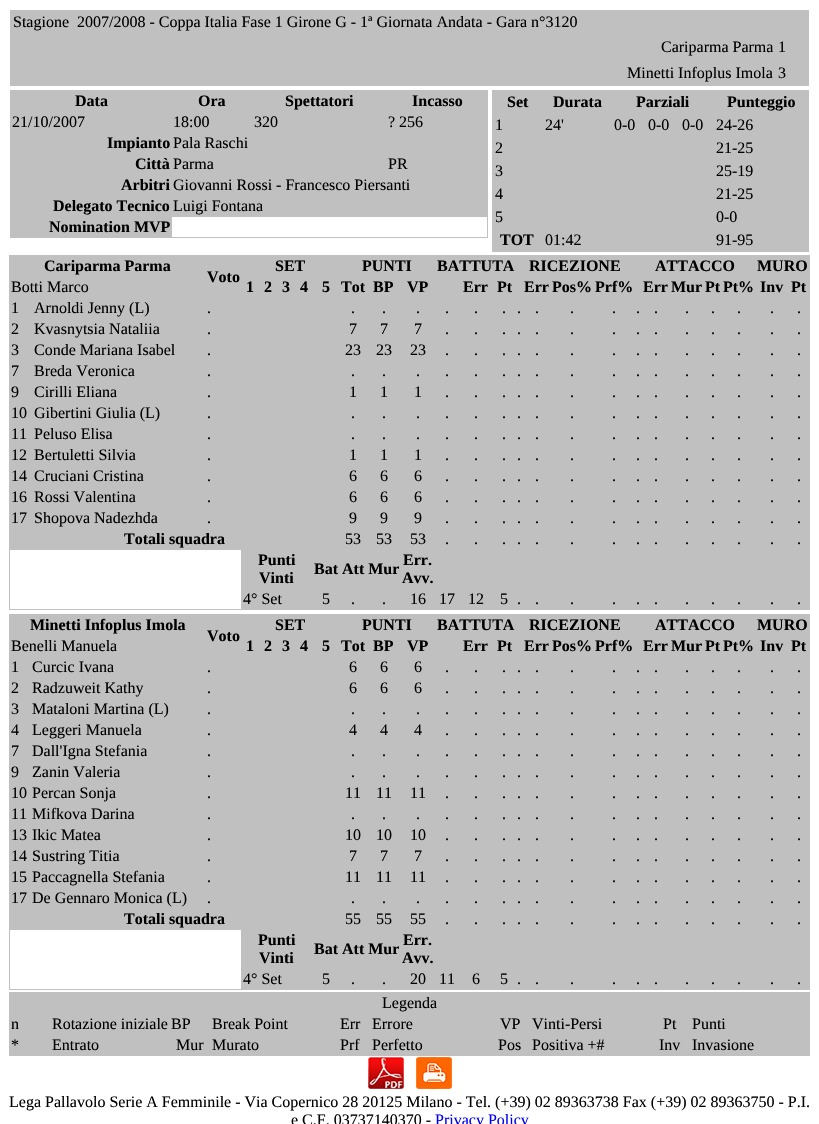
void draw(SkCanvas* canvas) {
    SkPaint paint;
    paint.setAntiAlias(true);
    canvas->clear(0xFFFFFFFF);
    paint.setColor(0xFFC0C0C0);
    canvas->drawRect(SkRect::MakeXYWH(10, 10, 799, 76), paint);
    SkFont font1(fontMgr->matchFamilyStyle("Liberation Serif", SkFontStyle::Normal()), 16);
    font1.setSubpixel(true);
    paint.setColor(0xFF000000);
    canvas->drawString("Stagione  2007/2008 - Coppa Italia Fase 1 Girone G - 1ª Giornata Andata - Gara n°3120", 13, 27, font1, paint);
    canvas->drawString("Cariparma Parma", 661, 52, font1, paint);
    canvas->drawString("1", 778, 52, font1, paint);
    canvas->drawString("Minetti Infoplus Imola", 627, 78, font1, paint);
    canvas->drawString("3", 778, 78, font1, paint);
    paint.setColor(0xFFC0C0C0);
    canvas->drawRect(SkRect::MakeXYWH(10, 90, 478, 148), paint);
    SkFont font2(fontMgr->matchFamilyStyle("Liberation Serif", SkFontStyle::Bold()), 16);
    font2.setSubpixel(true);
    paint.setColor(0xFF000000);
    canvas->drawString("Data", 75, 106, font2, paint);
    canvas->drawString("Ora", 198, 106, font2, paint);
    canvas->drawString("Spettatori", 285, 106, font2, paint);
    canvas->drawString("Incasso", 412, 106, font2, paint);
    canvas->drawString("21/10/2007", 12, 127, font1, paint);
    canvas->drawString("18:00", 173, 127, font1, paint);
    canvas->drawString("320", 254, 127, font1, paint);
    canvas->drawString("? 256", 388, 127, font1, paint);
    canvas->drawString("Impianto", 107, 148, font2, paint);
    canvas->drawString("Pala Raschi", 173, 148, font1, paint);
    canvas->drawString("Città", 135, 169, font2, paint);
    canvas->drawString("Parma", 173, 169, font1, paint);
    canvas->drawString("PR", 388, 169, font1, paint);
    canvas->drawString("Arbitri", 121, 190, font2, paint);
    canvas->drawString("Giovanni Rossi - Francesco Piersanti", 173, 190, font1, paint);
    canvas->drawString("Delegato Tecnico", 53, 211, font2, paint);
    canvas->drawString("Luigi Fontana", 173, 211, font1, paint);
    canvas->drawString("Nomination MVP", 49, 232, font2, paint);
    paint.setColor(0xFFFFFFFF);
    canvas->drawRect(SkRect::MakeXYWH(172, 217, 315, 20), paint);
    paint.setColor(0xFFC0C0C0);
    canvas->drawRect(SkRect::MakeXYWH(492, 90, 317, 162), paint);
    paint.setColor(0xFF000000);
    canvas->drawString("Set", 507, 107, font2, paint);
    canvas->drawString("Durata", 553, 107, font2, paint);
    canvas->drawString("Parziali", 636, 107, font2, paint);
    canvas->drawString("Punteggio", 727, 107, font2, paint);
    canvas->drawString("1", 495, 130, font1, paint);
    canvas->drawString("24'", 545, 130, font1, paint);
    canvas->drawString("0-0", 614, 130, font1, paint);
    canvas->drawString("0-0", 648, 130, font1, paint);
    canvas->drawString("0-0", 682, 130, font1, paint);
    canvas->drawString("24-26", 716, 130, font1, paint);
    canvas->drawString("2", 495, 153, font1, paint);
    canvas->drawString("21-25", 716, 153, font1, paint);
    canvas->drawString("3", 495, 176, font1, paint);
    canvas->drawString("25-19", 716, 176, font1, paint);
    canvas->drawString("4", 495, 199, font1, paint);
    canvas->drawString("21-25", 716, 199, font1, paint);
    canvas->drawString("5", 495, 222, font1, paint);
    canvas->drawString("0-0", 716, 222, font1, paint);
    canvas->drawString("TOT", 500, 245, font2, paint);
    canvas->drawString("01:42", 545, 245, font1, paint);
    canvas->drawString("91-95", 716, 245, font1, paint);
    paint.setColor(0xFFC0C0C0);
    canvas->drawRect(SkRect::MakeXYWH(9, 255, 801, 355), paint);
    paint.setColor(0xFF000000);
    canvas->drawString("Cariparma Parma", 44, 271, font2, paint);
    canvas->drawString("SET", 275, 271, font2, paint);
    canvas->drawString("PUNTI", 362, 271, font2, paint);
    canvas->drawString("BATTUTA", 437, 271, font2, paint);
    canvas->drawString("RICEZIONE", 529, 271, font2, paint);
    canvas->drawString("ATTACCO", 655, 271, font2, paint);
    canvas->drawString("MURO", 757, 271, font2, paint);
    canvas->drawString("Voto", 207, 282, font2, paint);
    canvas->drawString("Botti Marco", 11, 292, font1, paint);
    canvas->drawString("1", 246, 292, font2, paint);
    canvas->drawString("2", 264, 292, font2, paint);
    canvas->drawString("3", 282, 292, font2, paint);
    canvas->drawString("4", 300, 292, font2, paint);
    canvas->drawString("5", 322, 292, font2, paint);
    canvas->drawString("Tot", 341, 292, font2, paint);
    canvas->drawString("BP", 373, 292, font2, paint);
    canvas->drawString("VP", 407, 292, font2, paint);
    canvas->drawString("Err", 463, 292, font2, paint);
    canvas->drawString("Pt", 497, 292, font2, paint);
    canvas->drawString("Err", 524, 292, font2, paint);
    canvas->drawString("Pos%", 552, 292, font2, paint);
    canvas->drawString("Prf%", 595, 292, font2, paint);
    canvas->drawString("Err", 643, 292, font2, paint);
    canvas->drawString("Mur", 671, 292, font2, paint);
    canvas->drawString("Pt", 705, 292, font2, paint);
    canvas->drawString("Pt%", 723, 292, font2, paint);
    canvas->drawString("Inv", 760, 292, font2, paint);
    canvas->drawString("Pt", 791, 292, font2, paint);
    canvas->drawString("1", 11, 313, font1, paint);
    canvas->drawString("Arnoldi Jenny (L)", 34, 313, font1, paint);
    canvas->drawString(".", 207, 313, font1, paint);
    canvas->drawString(".", 351, 313, font1, paint);
    canvas->drawString(".", 382, 313, font1, paint);
    canvas->drawString(".", 416, 313, font1, paint);
    canvas->drawString(".", 445, 313, font1, paint);
    canvas->drawString(".", 474, 313, font1, paint);
    canvas->drawString(".", 502, 313, font1, paint);
    canvas->drawString(".", 517, 313, font1, paint);
    canvas->drawString(".", 535, 313, font1, paint);
    canvas->drawString(".", 570, 313, font1, paint);
    canvas->drawString(".", 612, 313, font1, paint);
    canvas->drawString(".", 636, 313, font1, paint);
    canvas->drawString(".", 654, 313, font1, paint);
    canvas->drawString(".", 685, 313, font1, paint);
    canvas->drawString(".", 711, 313, font1, paint);
    canvas->drawString(".", 737, 313, font1, paint);
    canvas->drawString(".", 770, 313, font1, paint);
    canvas->drawString(".", 797, 313, font1, paint);
    canvas->drawString("2", 11, 334, font1, paint);
    canvas->drawString("Kvasnytsia Nataliia", 34, 334, font1, paint);
    canvas->drawString(".", 207, 334, font1, paint);
    canvas->drawString("7", 349, 334, font1, paint);
    canvas->drawString("7", 380, 334, font1, paint);
    canvas->drawString("7", 414, 334, font1, paint);
    canvas->drawString(".", 445, 334, font1, paint);
    canvas->drawString(".", 474, 334, font1, paint);
    canvas->drawString(".", 502, 334, font1, paint);
    canvas->drawString(".", 517, 334, font1, paint);
    canvas->drawString(".", 535, 334, font1, paint);
    canvas->drawString(".", 570, 334, font1, paint);
    canvas->drawString(".", 612, 334, font1, paint);
    canvas->drawString(".", 636, 334, font1, paint);
    canvas->drawString(".", 654, 334, font1, paint);
    canvas->drawString(".", 685, 334, font1, paint);
    canvas->drawString(".", 711, 334, font1, paint);
    canvas->drawString(".", 737, 334, font1, paint);
    canvas->drawString(".", 770, 334, font1, paint);
    canvas->drawString(".", 797, 334, font1, paint);
    canvas->drawString("3", 11, 355, font1, paint);
    canvas->drawString("Conde Mariana Isabel", 34, 355, font1, paint);
    canvas->drawString(".", 207, 355, font1, paint);
    canvas->drawString("23", 345, 355, font1, paint);
    canvas->drawString("23", 376, 355, font1, paint);
    canvas->drawString("23", 410, 355, font1, paint);
    canvas->drawString(".", 445, 355, font1, paint);
    canvas->drawString(".", 474, 355, font1, paint);
    canvas->drawString(".", 502, 355, font1, paint);
    canvas->drawString(".", 517, 355, font1, paint);
    canvas->drawString(".", 535, 355, font1, paint);
    canvas->drawString(".", 570, 355, font1, paint);
    canvas->drawString(".", 612, 355, font1, paint);
    canvas->drawString(".", 636, 355, font1, paint);
    canvas->drawString(".", 654, 355, font1, paint);
    canvas->drawString(".", 685, 355, font1, paint);
    canvas->drawString(".", 711, 355, font1, paint);
    canvas->drawString(".", 737, 355, font1, paint);
    canvas->drawString(".", 770, 355, font1, paint);
    canvas->drawString(".", 797, 355, font1, paint);
    canvas->drawString("7", 11, 376, font1, paint);
    canvas->drawString("Breda Veronica", 34, 376, font1, paint);
    canvas->drawString(".", 207, 376, font1, paint);
    canvas->drawString(".", 351, 376, font1, paint);
    canvas->drawString(".", 382, 376, font1, paint);
    canvas->drawString(".", 416, 376, font1, paint);
    canvas->drawString(".", 445, 376, font1, paint);
    canvas->drawString(".", 474, 376, font1, paint);
    canvas->drawString(".", 502, 376, font1, paint);
    canvas->drawString(".", 517, 376, font1, paint);
    canvas->drawString(".", 535, 376, font1, paint);
    canvas->drawString(".", 570, 376, font1, paint);
    canvas->drawString(".", 612, 376, font1, paint);
    canvas->drawString(".", 636, 376, font1, paint);
    canvas->drawString(".", 654, 376, font1, paint);
    canvas->drawString(".", 685, 376, font1, paint);
    canvas->drawString(".", 711, 376, font1, paint);
    canvas->drawString(".", 737, 376, font1, paint);
    canvas->drawString(".", 770, 376, font1, paint);
    canvas->drawString(".", 797, 376, font1, paint);
    canvas->drawString("9", 11, 397, font1, paint);
    canvas->drawString("Cirilli Eliana", 34, 397, font1, paint);
    canvas->drawString(".", 207, 397, font1, paint);
    canvas->drawString("1", 349, 397, font1, paint);
    canvas->drawString("1", 380, 397, font1, paint);
    canvas->drawString("1", 414, 397, font1, paint);
    canvas->drawString(".", 445, 397, font1, paint);
    canvas->drawString(".", 474, 397, font1, paint);
    canvas->drawString(".", 502, 397, font1, paint);
    canvas->drawString(".", 517, 397, font1, paint);
    canvas->drawString(".", 535, 397, font1, paint);
    canvas->drawString(".", 570, 397, font1, paint);
    canvas->drawString(".", 612, 397, font1, paint);
    canvas->drawString(".", 636, 397, font1, paint);
    canvas->drawString(".", 654, 397, font1, paint);
    canvas->drawString(".", 685, 397, font1, paint);
    canvas->drawString(".", 711, 397, font1, paint);
    canvas->drawString(".", 737, 397, font1, paint);
    canvas->drawString(".", 770, 397, font1, paint);
    canvas->drawString(".", 797, 397, font1, paint);
    canvas->drawString("10", 11, 418, font1, paint);
    canvas->drawString("Gibertini Giulia (L)", 34, 418, font1, paint);
    canvas->drawString(".", 207, 418, font1, paint);
    canvas->drawString(".", 351, 418, font1, paint);
    canvas->drawString(".", 382, 418, font1, paint);
    canvas->drawString(".", 416, 418, font1, paint);
    canvas->drawString(".", 445, 418, font1, paint);
    canvas->drawString(".", 474, 418, font1, paint);
    canvas->drawString(".", 502, 418, font1, paint);
    canvas->drawString(".", 517, 418, font1, paint);
    canvas->drawString(".", 535, 418, font1, paint);
    canvas->drawString(".", 570, 418, font1, paint);
    canvas->drawString(".", 612, 418, font1, paint);
    canvas->drawString(".", 636, 418, font1, paint);
    canvas->drawString(".", 654, 418, font1, paint);
    canvas->drawString(".", 685, 418, font1, paint);
    canvas->drawString(".", 711, 418, font1, paint);
    canvas->drawString(".", 737, 418, font1, paint);
    canvas->drawString(".", 770, 418, font1, paint);
    canvas->drawString(".", 797, 418, font1, paint);
    canvas->drawString("11", 11, 439, font1, paint);
    canvas->drawString("Peluso Elisa", 34, 439, font1, paint);
    canvas->drawString(".", 207, 439, font1, paint);
    canvas->drawString(".", 351, 439, font1, paint);
    canvas->drawString(".", 382, 439, font1, paint);
    canvas->drawString(".", 416, 439, font1, paint);
    canvas->drawString(".", 445, 439, font1, paint);
    canvas->drawString(".", 474, 439, font1, paint);
    canvas->drawString(".", 502, 439, font1, paint);
    canvas->drawString(".", 517, 439, font1, paint);
    canvas->drawString(".", 535, 439, font1, paint);
    canvas->drawString(".", 570, 439, font1, paint);
    canvas->drawString(".", 612, 439, font1, paint);
    canvas->drawString(".", 636, 439, font1, paint);
    canvas->drawString(".", 654, 439, font1, paint);
    canvas->drawString(".", 685, 439, font1, paint);
    canvas->drawString(".", 711, 439, font1, paint);
    canvas->drawString(".", 737, 439, font1, paint);
    canvas->drawString(".", 770, 439, font1, paint);
    canvas->drawString(".", 797, 439, font1, paint);
    canvas->drawString("12", 11, 460, font1, paint);
    canvas->drawString("Bertuletti Silvia", 34, 460, font1, paint);
    canvas->drawString(".", 207, 460, font1, paint);
    canvas->drawString("1", 349, 460, font1, paint);
    canvas->drawString("1", 380, 460, font1, paint);
    canvas->drawString("1", 414, 460, font1, paint);
    canvas->drawString(".", 445, 460, font1, paint);
    canvas->drawString(".", 474, 460, font1, paint);
    canvas->drawString(".", 502, 460, font1, paint);
    canvas->drawString(".", 517, 460, font1, paint);
    canvas->drawString(".", 535, 460, font1, paint);
    canvas->drawString(".", 570, 460, font1, paint);
    canvas->drawString(".", 612, 460, font1, paint);
    canvas->drawString(".", 636, 460, font1, paint);
    canvas->drawString(".", 654, 460, font1, paint);
    canvas->drawString(".", 685, 460, font1, paint);
    canvas->drawString(".", 711, 460, font1, paint);
    canvas->drawString(".", 737, 460, font1, paint);
    canvas->drawString(".", 770, 460, font1, paint);
    canvas->drawString(".", 797, 460, font1, paint);
    canvas->drawString("14", 11, 481, font1, paint);
    canvas->drawString("Cruciani Cristina", 34, 481, font1, paint);
    canvas->drawString(".", 207, 481, font1, paint);
    canvas->drawString("6", 349, 481, font1, paint);
    canvas->drawString("6", 380, 481, font1, paint);
    canvas->drawString("6", 414, 481, font1, paint);
    canvas->drawString(".", 445, 481, font1, paint);
    canvas->drawString(".", 474, 481, font1, paint);
    canvas->drawString(".", 502, 481, font1, paint);
    canvas->drawString(".", 517, 481, font1, paint);
    canvas->drawString(".", 535, 481, font1, paint);
    canvas->drawString(".", 570, 481, font1, paint);
    canvas->drawString(".", 612, 481, font1, paint);
    canvas->drawString(".", 636, 481, font1, paint);
    canvas->drawString(".", 654, 481, font1, paint);
    canvas->drawString(".", 685, 481, font1, paint);
    canvas->drawString(".", 711, 481, font1, paint);
    canvas->drawString(".", 737, 481, font1, paint);
    canvas->drawString(".", 770, 481, font1, paint);
    canvas->drawString(".", 797, 481, font1, paint);
    canvas->drawString("16", 11, 502, font1, paint);
    canvas->drawString("Rossi Valentina", 34, 502, font1, paint);
    canvas->drawString(".", 207, 502, font1, paint);
    canvas->drawString("6", 349, 502, font1, paint);
    canvas->drawString("6", 380, 502, font1, paint);
    canvas->drawString("6", 414, 502, font1, paint);
    canvas->drawString(".", 445, 502, font1, paint);
    canvas->drawString(".", 474, 502, font1, paint);
    canvas->drawString(".", 502, 502, font1, paint);
    canvas->drawString(".", 517, 502, font1, paint);
    canvas->drawString(".", 535, 502, font1, paint);
    canvas->drawString(".", 570, 502, font1, paint);
    canvas->drawString(".", 612, 502, font1, paint);
    canvas->drawString(".", 636, 502, font1, paint);
    canvas->drawString(".", 654, 502, font1, paint);
    canvas->drawString(".", 685, 502, font1, paint);
    canvas->drawString(".", 711, 502, font1, paint);
    canvas->drawString(".", 737, 502, font1, paint);
    canvas->drawString(".", 770, 502, font1, paint);
    canvas->drawString(".", 797, 502, font1, paint);
    canvas->drawString("17", 11, 523, font1, paint);
    canvas->drawString("Shopova Nadezhda", 34, 523, font1, paint);
    canvas->drawString(".", 207, 523, font1, paint);
    canvas->drawString("9", 349, 523, font1, paint);
    canvas->drawString("9", 380, 523, font1, paint);
    canvas->drawString("9", 414, 523, font1, paint);
    canvas->drawString(".", 445, 523, font1, paint);
    canvas->drawString(".", 474, 523, font1, paint);
    canvas->drawString(".", 502, 523, font1, paint);
    canvas->drawString(".", 517, 523, font1, paint);
    canvas->drawString(".", 535, 523, font1, paint);
    canvas->drawString(".", 570, 523, font1, paint);
    canvas->drawString(".", 612, 523, font1, paint);
    canvas->drawString(".", 636, 523, font1, paint);
    canvas->drawString(".", 654, 523, font1, paint);
    canvas->drawString(".", 685, 523, font1, paint);
    canvas->drawString(".", 711, 523, font1, paint);
    canvas->drawString(".", 737, 523, font1, paint);
    canvas->drawString(".", 770, 523, font1, paint);
    canvas->drawString(".", 797, 523, font1, paint);
    canvas->drawString("Totali squadra", 124, 544, font2, paint);
    canvas->drawString("53", 345, 544, font1, paint);
    canvas->drawString("53", 376, 544, font1, paint);
    canvas->drawString("53", 410, 544, font1, paint);
    canvas->drawString(".", 445, 544, font1, paint);
    canvas->drawString(".", 474, 544, font1, paint);
    canvas->drawString(".", 502, 544, font1, paint);
    canvas->drawString(".", 517, 544, font1, paint);
    canvas->drawString(".", 535, 544, font1, paint);
    canvas->drawString(".", 570, 544, font1, paint);
    canvas->drawString(".", 612, 544, font1, paint);
    canvas->drawString(".", 636, 544, font1, paint);
    canvas->drawString(".", 654, 544, font1, paint);
    canvas->drawString(".", 685, 544, font1, paint);
    canvas->drawString(".", 711, 544, font1, paint);
    canvas->drawString(".", 737, 544, font1, paint);
    canvas->drawString(".", 770, 544, font1, paint);
    canvas->drawString(".", 797, 544, font1, paint);
    paint.setColor(0xFFFFFFFF);
    canvas->drawRect(SkRect::MakeXYWH(10, 550, 231, 59), paint);
    paint.setColor(0xFF000000);
    canvas->drawString("Punti", 258, 565, font2, paint);
    canvas->drawString("Vinti", 259, 583, font2, paint);
    canvas->drawString("Bat Att Mur", 314, 574, font2, paint);
    canvas->drawString("Err.", 403, 565, font2, paint);
    canvas->drawString("Avv.", 402, 583, font2, paint);
    canvas->drawString("4° Set", 243, 604, font1, paint);
    canvas->drawString("5", 322, 604, font1, paint);
    canvas->drawString(".", 351, 604, font1, paint);
    canvas->drawString(".", 382, 604, font1, paint);
    canvas->drawString("16", 410, 604, font1, paint);
    canvas->drawString("17", 439, 604, font1, paint);
    canvas->drawString("12", 468, 604, font1, paint);
    canvas->drawString("5", 500, 604, font1, paint);
    canvas->drawString(".", 517, 604, font1, paint);
    canvas->drawString(".", 535, 604, font1, paint);
    canvas->drawString(".", 570, 604, font1, paint);
    canvas->drawString(".", 612, 604, font1, paint);
    canvas->drawString(".", 636, 604, font1, paint);
    canvas->drawString(".", 654, 604, font1, paint);
    canvas->drawString(".", 685, 604, font1, paint);
    canvas->drawString(".", 711, 604, font1, paint);
    canvas->drawString(".", 737, 604, font1, paint);
    canvas->drawString(".", 770, 604, font1, paint);
    canvas->drawString(".", 797, 604, font1, paint);
    paint.setColor(0xFFC0C0C0);
    canvas->drawRect(SkRect::MakeXYWH(9, 614, 801, 376), paint);
    paint.setColor(0xFF000000);
    canvas->drawString("Minetti Infoplus Imola", 30, 630, font2, paint);
    canvas->drawString("SET", 275, 630, font2, paint);
    canvas->drawString("PUNTI", 362, 630, font2, paint);
    canvas->drawString("BATTUTA", 437, 630, font2, paint);
    canvas->drawString("RICEZIONE", 529, 630, font2, paint);
    canvas->drawString("ATTACCO", 655, 630, font2, paint);
    canvas->drawString("MURO", 757, 630, font2, paint);
    canvas->drawString("Voto", 207, 641, font2, paint);
    canvas->drawString("Benelli Manuela", 11, 651, font1, paint);
    canvas->drawString("1", 246, 651, font2, paint);
    canvas->drawString("2", 264, 651, font2, paint);
    canvas->drawString("3", 282, 651, font2, paint);
    canvas->drawString("4", 300, 651, font2, paint);
    canvas->drawString("5", 322, 651, font2, paint);
    canvas->drawString("Tot", 341, 651, font2, paint);
    canvas->drawString("BP", 373, 651, font2, paint);
    canvas->drawString("VP", 407, 651, font2, paint);
    canvas->drawString("Err", 463, 651, font2, paint);
    canvas->drawString("Pt", 497, 651, font2, paint);
    canvas->drawString("Err", 524, 651, font2, paint);
    canvas->drawString("Pos%", 552, 651, font2, paint);
    canvas->drawString("Prf%", 595, 651, font2, paint);
    canvas->drawString("Err", 643, 651, font2, paint);
    canvas->drawString("Mur", 671, 651, font2, paint);
    canvas->drawString("Pt", 705, 651, font2, paint);
    canvas->drawString("Pt%", 723, 651, font2, paint);
    canvas->drawString("Inv", 760, 651, font2, paint);
    canvas->drawString("Pt", 791, 651, font2, paint);
    canvas->drawString("1", 11, 672, font1, paint);
    canvas->drawString("Curcic Ivana", 32, 672, font1, paint);
    canvas->drawString(".", 207, 672, font1, paint);
    canvas->drawString("6", 349, 672, font1, paint);
    canvas->drawString("6", 380, 672, font1, paint);
    canvas->drawString("6", 414, 672, font1, paint);
    canvas->drawString(".", 445, 672, font1, paint);
    canvas->drawString(".", 474, 672, font1, paint);
    canvas->drawString(".", 502, 672, font1, paint);
    canvas->drawString(".", 517, 672, font1, paint);
    canvas->drawString(".", 535, 672, font1, paint);
    canvas->drawString(".", 570, 672, font1, paint);
    canvas->drawString(".", 612, 672, font1, paint);
    canvas->drawString(".", 636, 672, font1, paint);
    canvas->drawString(".", 654, 672, font1, paint);
    canvas->drawString(".", 685, 672, font1, paint);
    canvas->drawString(".", 711, 672, font1, paint);
    canvas->drawString(".", 737, 672, font1, paint);
    canvas->drawString(".", 770, 672, font1, paint);
    canvas->drawString(".", 797, 672, font1, paint);
    canvas->drawString("2", 11, 693, font1, paint);
    canvas->drawString("Radzuweit Kathy", 32, 693, font1, paint);
    canvas->drawString(".", 207, 693, font1, paint);
    canvas->drawString("6", 349, 693, font1, paint);
    canvas->drawString("6", 380, 693, font1, paint);
    canvas->drawString("6", 414, 693, font1, paint);
    canvas->drawString(".", 445, 693, font1, paint);
    canvas->drawString(".", 474, 693, font1, paint);
    canvas->drawString(".", 502, 693, font1, paint);
    canvas->drawString(".", 517, 693, font1, paint);
    canvas->drawString(".", 535, 693, font1, paint);
    canvas->drawString(".", 570, 693, font1, paint);
    canvas->drawString(".", 612, 693, font1, paint);
    canvas->drawString(".", 636, 693, font1, paint);
    canvas->drawString(".", 654, 693, font1, paint);
    canvas->drawString(".", 685, 693, font1, paint);
    canvas->drawString(".", 711, 693, font1, paint);
    canvas->drawString(".", 737, 693, font1, paint);
    canvas->drawString(".", 770, 693, font1, paint);
    canvas->drawString(".", 797, 693, font1, paint);
    canvas->drawString("3", 11, 714, font1, paint);
    canvas->drawString("Mataloni Martina (L)", 32, 714, font1, paint);
    canvas->drawString(".", 207, 714, font1, paint);
    canvas->drawString(".", 351, 714, font1, paint);
    canvas->drawString(".", 382, 714, font1, paint);
    canvas->drawString(".", 416, 714, font1, paint);
    canvas->drawString(".", 445, 714, font1, paint);
    canvas->drawString(".", 474, 714, font1, paint);
    canvas->drawString(".", 502, 714, font1, paint);
    canvas->drawString(".", 517, 714, font1, paint);
    canvas->drawString(".", 535, 714, font1, paint);
    canvas->drawString(".", 570, 714, font1, paint);
    canvas->drawString(".", 612, 714, font1, paint);
    canvas->drawString(".", 636, 714, font1, paint);
    canvas->drawString(".", 654, 714, font1, paint);
    canvas->drawString(".", 685, 714, font1, paint);
    canvas->drawString(".", 711, 714, font1, paint);
    canvas->drawString(".", 737, 714, font1, paint);
    canvas->drawString(".", 770, 714, font1, paint);
    canvas->drawString(".", 797, 714, font1, paint);
    canvas->drawString("4", 11, 735, font1, paint);
    canvas->drawString("Leggeri Manuela", 32, 735, font1, paint);
    canvas->drawString(".", 207, 735, font1, paint);
    canvas->drawString("4", 349, 735, font1, paint);
    canvas->drawString("4", 380, 735, font1, paint);
    canvas->drawString("4", 414, 735, font1, paint);
    canvas->drawString(".", 445, 735, font1, paint);
    canvas->drawString(".", 474, 735, font1, paint);
    canvas->drawString(".", 502, 735, font1, paint);
    canvas->drawString(".", 517, 735, font1, paint);
    canvas->drawString(".", 535, 735, font1, paint);
    canvas->drawString(".", 570, 735, font1, paint);
    canvas->drawString(".", 612, 735, font1, paint);
    canvas->drawString(".", 636, 735, font1, paint);
    canvas->drawString(".", 654, 735, font1, paint);
    canvas->drawString(".", 685, 735, font1, paint);
    canvas->drawString(".", 711, 735, font1, paint);
    canvas->drawString(".", 737, 735, font1, paint);
    canvas->drawString(".", 770, 735, font1, paint);
    canvas->drawString(".", 797, 735, font1, paint);
    canvas->drawString("7", 11, 756, font1, paint);
    canvas->drawString("Dall'Igna Stefania", 32, 756, font1, paint);
    canvas->drawString(".", 207, 756, font1, paint);
    canvas->drawString(".", 351, 756, font1, paint);
    canvas->drawString(".", 382, 756, font1, paint);
    canvas->drawString(".", 416, 756, font1, paint);
    canvas->drawString(".", 445, 756, font1, paint);
    canvas->drawString(".", 474, 756, font1, paint);
    canvas->drawString(".", 502, 756, font1, paint);
    canvas->drawString(".", 517, 756, font1, paint);
    canvas->drawString(".", 535, 756, font1, paint);
    canvas->drawString(".", 570, 756, font1, paint);
    canvas->drawString(".", 612, 756, font1, paint);
    canvas->drawString(".", 636, 756, font1, paint);
    canvas->drawString(".", 654, 756, font1, paint);
    canvas->drawString(".", 685, 756, font1, paint);
    canvas->drawString(".", 711, 756, font1, paint);
    canvas->drawString(".", 737, 756, font1, paint);
    canvas->drawString(".", 770, 756, font1, paint);
    canvas->drawString(".", 797, 756, font1, paint);
    canvas->drawString("9", 11, 777, font1, paint);
    canvas->drawString("Zanin Valeria", 32, 777, font1, paint);
    canvas->drawString(".", 207, 777, font1, paint);
    canvas->drawString(".", 351, 777, font1, paint);
    canvas->drawString(".", 382, 777, font1, paint);
    canvas->drawString(".", 416, 777, font1, paint);
    canvas->drawString(".", 445, 777, font1, paint);
    canvas->drawString(".", 474, 777, font1, paint);
    canvas->drawString(".", 502, 777, font1, paint);
    canvas->drawString(".", 517, 777, font1, paint);
    canvas->drawString(".", 535, 777, font1, paint);
    canvas->drawString(".", 570, 777, font1, paint);
    canvas->drawString(".", 612, 777, font1, paint);
    canvas->drawString(".", 636, 777, font1, paint);
    canvas->drawString(".", 654, 777, font1, paint);
    canvas->drawString(".", 685, 777, font1, paint);
    canvas->drawString(".", 711, 777, font1, paint);
    canvas->drawString(".", 737, 777, font1, paint);
    canvas->drawString(".", 770, 777, font1, paint);
    canvas->drawString(".", 797, 777, font1, paint);
    canvas->drawString("10", 11, 798, font1, paint);
    canvas->drawString("Percan Sonja", 32, 798, font1, paint);
    canvas->drawString(".", 207, 798, font1, paint);
    canvas->drawString("11", 345, 798, font1, paint);
    canvas->drawString("11", 376, 798, font1, paint);
    canvas->drawString("11", 410, 798, font1, paint);
    canvas->drawString(".", 445, 798, font1, paint);
    canvas->drawString(".", 474, 798, font1, paint);
    canvas->drawString(".", 502, 798, font1, paint);
    canvas->drawString(".", 517, 798, font1, paint);
    canvas->drawString(".", 535, 798, font1, paint);
    canvas->drawString(".", 570, 798, font1, paint);
    canvas->drawString(".", 612, 798, font1, paint);
    canvas->drawString(".", 636, 798, font1, paint);
    canvas->drawString(".", 654, 798, font1, paint);
    canvas->drawString(".", 685, 798, font1, paint);
    canvas->drawString(".", 711, 798, font1, paint);
    canvas->drawString(".", 737, 798, font1, paint);
    canvas->drawString(".", 770, 798, font1, paint);
    canvas->drawString(".", 797, 798, font1, paint);
    canvas->drawString("11", 11, 819, font1, paint);
    canvas->drawString("Mifkova Darina", 32, 819, font1, paint);
    canvas->drawString(".", 207, 819, font1, paint);
    canvas->drawString(".", 351, 819, font1, paint);
    canvas->drawString(".", 382, 819, font1, paint);
    canvas->drawString(".", 416, 819, font1, paint);
    canvas->drawString(".", 445, 819, font1, paint);
    canvas->drawString(".", 474, 819, font1, paint);
    canvas->drawString(".", 502, 819, font1, paint);
    canvas->drawString(".", 517, 819, font1, paint);
    canvas->drawString(".", 535, 819, font1, paint);
    canvas->drawString(".", 570, 819, font1, paint);
    canvas->drawString(".", 612, 819, font1, paint);
    canvas->drawString(".", 636, 819, font1, paint);
    canvas->drawString(".", 654, 819, font1, paint);
    canvas->drawString(".", 685, 819, font1, paint);
    canvas->drawString(".", 711, 819, font1, paint);
    canvas->drawString(".", 737, 819, font1, paint);
    canvas->drawString(".", 770, 819, font1, paint);
    canvas->drawString(".", 797, 819, font1, paint);
    canvas->drawString("13", 11, 840, font1, paint);
    canvas->drawString("Ikic Matea", 32, 840, font1, paint);
    canvas->drawString(".", 207, 840, font1, paint);
    canvas->drawString("10", 345, 840, font1, paint);
    canvas->drawString("10", 376, 840, font1, paint);
    canvas->drawString("10", 410, 840, font1, paint);
    canvas->drawString(".", 445, 840, font1, paint);
    canvas->drawString(".", 474, 840, font1, paint);
    canvas->drawString(".", 502, 840, font1, paint);
    canvas->drawString(".", 517, 840, font1, paint);
    canvas->drawString(".", 535, 840, font1, paint);
    canvas->drawString(".", 570, 840, font1, paint);
    canvas->drawString(".", 612, 840, font1, paint);
    canvas->drawString(".", 636, 840, font1, paint);
    canvas->drawString(".", 654, 840, font1, paint);
    canvas->drawString(".", 685, 840, font1, paint);
    canvas->drawString(".", 711, 840, font1, paint);
    canvas->drawString(".", 737, 840, font1, paint);
    canvas->drawString(".", 770, 840, font1, paint);
    canvas->drawString(".", 797, 840, font1, paint);
    canvas->drawString("14", 11, 861, font1, paint);
    canvas->drawString("Sustring Titia", 32, 861, font1, paint);
    canvas->drawString(".", 207, 861, font1, paint);
    canvas->drawString("7", 349, 861, font1, paint);
    canvas->drawString("7", 380, 861, font1, paint);
    canvas->drawString("7", 414, 861, font1, paint);
    canvas->drawString(".", 445, 861, font1, paint);
    canvas->drawString(".", 474, 861, font1, paint);
    canvas->drawString(".", 502, 861, font1, paint);
    canvas->drawString(".", 517, 861, font1, paint);
    canvas->drawString(".", 535, 861, font1, paint);
    canvas->drawString(".", 570, 861, font1, paint);
    canvas->drawString(".", 612, 861, font1, paint);
    canvas->drawString(".", 636, 861, font1, paint);
    canvas->drawString(".", 654, 861, font1, paint);
    canvas->drawString(".", 685, 861, font1, paint);
    canvas->drawString(".", 711, 861, font1, paint);
    canvas->drawString(".", 737, 861, font1, paint);
    canvas->drawString(".", 770, 861, font1, paint);
    canvas->drawString(".", 797, 861, font1, paint);
    canvas->drawString("15", 11, 882, font1, paint);
    canvas->drawString("Paccagnella Stefania", 32, 882, font1, paint);
    canvas->drawString(".", 207, 882, font1, paint);
    canvas->drawString("11", 345, 882, font1, paint);
    canvas->drawString("11", 376, 882, font1, paint);
    canvas->drawString("11", 410, 882, font1, paint);
    canvas->drawString(".", 445, 882, font1, paint);
    canvas->drawString(".", 474, 882, font1, paint);
    canvas->drawString(".", 502, 882, font1, paint);
    canvas->drawString(".", 517, 882, font1, paint);
    canvas->drawString(".", 535, 882, font1, paint);
    canvas->drawString(".", 570, 882, font1, paint);
    canvas->drawString(".", 612, 882, font1, paint);
    canvas->drawString(".", 636, 882, font1, paint);
    canvas->drawString(".", 654, 882, font1, paint);
    canvas->drawString(".", 685, 882, font1, paint);
    canvas->drawString(".", 711, 882, font1, paint);
    canvas->drawString(".", 737, 882, font1, paint);
    canvas->drawString(".", 770, 882, font1, paint);
    canvas->drawString(".", 797, 882, font1, paint);
    canvas->drawString("17", 11, 903, font1, paint);
    canvas->drawString("De Gennaro Monica (L)", 32, 903, font1, paint);
    canvas->drawString(".", 207, 903, font1, paint);
    canvas->drawString(".", 351, 903, font1, paint);
    canvas->drawString(".", 382, 903, font1, paint);
    canvas->drawString(".", 416, 903, font1, paint);
    canvas->drawString(".", 445, 903, font1, paint);
    canvas->drawString(".", 474, 903, font1, paint);
    canvas->drawString(".", 502, 903, font1, paint);
    canvas->drawString(".", 517, 903, font1, paint);
    canvas->drawString(".", 535, 903, font1, paint);
    canvas->drawString(".", 570, 903, font1, paint);
    canvas->drawString(".", 612, 903, font1, paint);
    canvas->drawString(".", 636, 903, font1, paint);
    canvas->drawString(".", 654, 903, font1, paint);
    canvas->drawString(".", 685, 903, font1, paint);
    canvas->drawString(".", 711, 903, font1, paint);
    canvas->drawString(".", 737, 903, font1, paint);
    canvas->drawString(".", 770, 903, font1, paint);
    canvas->drawString(".", 797, 903, font1, paint);
    canvas->drawString("Totali squadra", 124, 924, font2, paint);
    canvas->drawString("55", 345, 924, font1, paint);
    canvas->drawString("55", 376, 924, font1, paint);
    canvas->drawString("55", 410, 924, font1, paint);
    canvas->drawString(".", 445, 924, font1, paint);
    canvas->drawString(".", 474, 924, font1, paint);
    canvas->drawString(".", 502, 924, font1, paint);
    canvas->drawString(".", 517, 924, font1, paint);
    canvas->drawString(".", 535, 924, font1, paint);
    canvas->drawString(".", 570, 924, font1, paint);
    canvas->drawString(".", 612, 924, font1, paint);
    canvas->drawString(".", 636, 924, font1, paint);
    canvas->drawString(".", 654, 924, font1, paint);
    canvas->drawString(".", 685, 924, font1, paint);
    canvas->drawString(".", 711, 924, font1, paint);
    canvas->drawString(".", 737, 924, font1, paint);
    canvas->drawString(".", 770, 924, font1, paint);
    canvas->drawString(".", 797, 924, font1, paint);
    paint.setColor(0xFFFFFFFF);
    canvas->drawRect(SkRect::MakeXYWH(10, 930, 231, 59), paint);
    paint.setColor(0xFF000000);
    canvas->drawString("Punti", 258, 945, font2, paint);
    canvas->drawString("Vinti", 259, 963, font2, paint);
    canvas->drawString("Bat Att Mur", 314, 954, font2, paint);
    canvas->drawString("Err.", 403, 945, font2, paint);
    canvas->drawString("Avv.", 402, 963, font2, paint);
    canvas->drawString("4° Set", 243, 984, font1, paint);
    canvas->drawString("5", 322, 984, font1, paint);
    canvas->drawString(".", 351, 984, font1, paint);
    canvas->drawString(".", 382, 984, font1, paint);
    canvas->drawString("20", 410, 984, font1, paint);
    canvas->drawString("11", 439, 984, font1, paint);
    canvas->drawString("6", 472, 984, font1, paint);
    canvas->drawString("5", 500, 984, font1, paint);
    canvas->drawString(".", 517, 984, font1, paint);
    canvas->drawString(".", 535, 984, font1, paint);
    canvas->drawString(".", 570, 984, font1, paint);
    canvas->drawString(".", 612, 984, font1, paint);
    canvas->drawString(".", 636, 984, font1, paint);
    canvas->drawString(".", 654, 984, font1, paint);
    canvas->drawString(".", 685, 984, font1, paint);
    canvas->drawString(".", 711, 984, font1, paint);
    canvas->drawString(".", 737, 984, font1, paint);
    canvas->drawString(".", 770, 984, font1, paint);
    canvas->drawString(".", 797, 984, font1, paint);
    paint.setColor(0xFFC0C0C0);
    canvas->drawRect(SkRect::MakeXYWH(9, 992, 801, 64), paint);
    paint.setColor(0xFF000000);
    canvas->drawString("Legenda", 382, 1008, font1, paint);
    canvas->drawString("n", 11, 1029, font1, paint);
    canvas->drawString("Rotazione iniziale", 52, 1029, font1, paint);
    canvas->drawString("BP", 171, 1029, font1, paint);
    canvas->drawString("Break Point", 212, 1029, font1, paint);
    canvas->drawString("Err", 340, 1029, font1, paint);
    canvas->drawString("Errore", 372, 1029, font1, paint);
    canvas->drawString("VP", 500, 1029, font1, paint);
    canvas->drawString("Vinti-Persi", 532, 1029, font1, paint);
    canvas->drawString("Pt", 663, 1029, font1, paint);
    canvas->drawString("Punti", 692, 1029, font1, paint);
    canvas->drawString("*", 11, 1050, font1, paint);
    canvas->drawString("Entrato", 52, 1050, font1, paint);
    canvas->drawString("Mur", 176, 1050, font1, paint);
    canvas->drawString("Murato", 212, 1050, font1, paint);
    canvas->drawString("Prf", 340, 1050, font1, paint);
    canvas->drawString("Perfetto", 372, 1050, font1, paint);
    canvas->drawString("Pos", 498, 1050, font1, paint);
    canvas->drawString("Positiva +#", 532, 1050, font1, paint);
    canvas->drawString("Inv", 659, 1050, font1, paint);
    canvas->drawString("Invasione", 692, 1050, font1, paint);
    canvas->drawImageRect(SkImages::DeferredFromEncodedData(SkData::MakeFromFileName("img1.png")), SkRect::MakeXYWH(368, 1057, 36, 32), SkSamplingOptions());
    canvas->drawImageRect(SkImages::DeferredFromEncodedData(SkData::MakeFromFileName("img2.png")), SkRect::MakeXYWH(416, 1057, 36, 32), SkSamplingOptions());
    canvas->drawString("Lega Pallavolo Serie A Femminile - Via Copernico 28 20125 Milano - Tel. (+39) 02 89363738 Fax (+39) 02 89363750 - P.I.", 9, 1107, font1, paint);
    canvas->drawString("e C.F. 03737140370 -", 291, 1125, font1, paint);
    paint.setColor(0xFF0000EE);
    canvas->drawString("Privacy Policy", 435, 1125, font1, paint);
}
